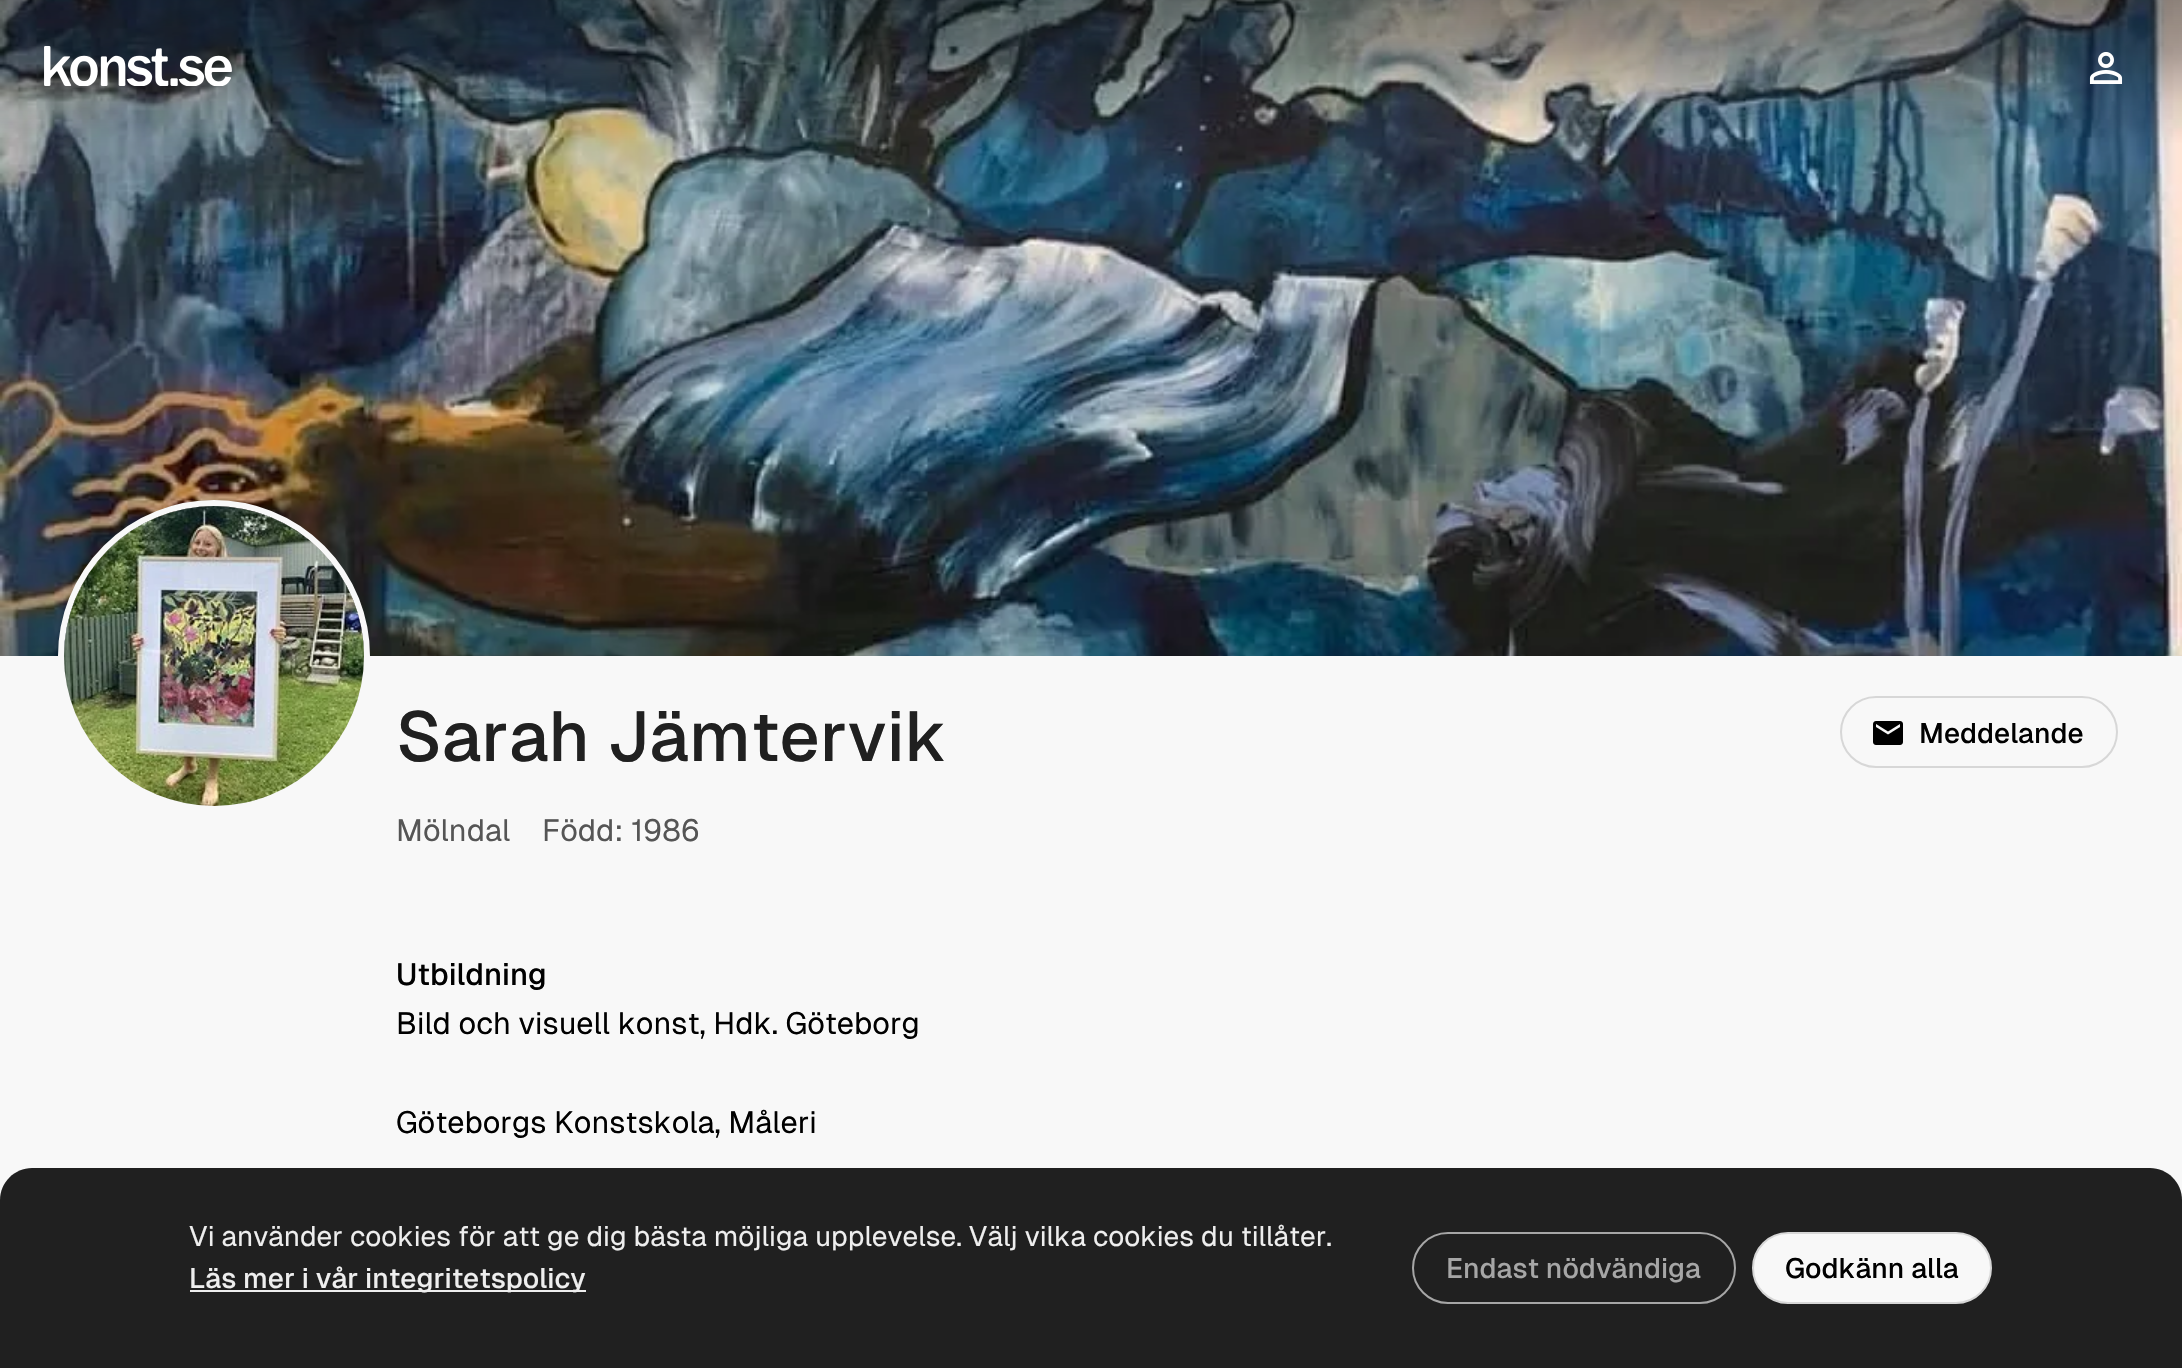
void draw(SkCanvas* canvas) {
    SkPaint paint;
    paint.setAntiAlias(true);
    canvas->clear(0xFFF8F8F8);
    canvas->drawImageRect(SkImages::DeferredFromEncodedData(SkData::MakeFromFileName("img3.png")), SkRect::MakeXYWH(0, 0, 2182, 656), SkSamplingOptions());
    canvas->drawImageRect(SkImages::DeferredFromEncodedData(SkData::MakeFromFileName("img1.png")), SkRect::MakeXYWH(44, 46, 188, 40), SkSamplingOptions());
    canvas->drawImageRect(SkImages::DeferredFromEncodedData(SkData::MakeFromFileName("img2.png")), SkRect::MakeXYWH(2089, 52, 34, 32), SkSamplingOptions());
    paint.setStyle(SkPaint::kStroke_Style);
    paint.setStrokeWidth(6);
    paint.setColor(0xFFF8F8F8);
    canvas->drawCircle(214, 656, 153, paint);
    paint.setStyle(SkPaint::kFill_Style);
    paint.setColor(0xFFEEEEEE);
    canvas->drawCircle(214, 656, 150, paint);
    canvas->drawImageRect(SkImages::DeferredFromEncodedData(SkData::MakeFromFileName("img4.png")), SkRect::MakeXYWH(64, 506, 300, 300), SkSamplingOptions());
    SkFont font1(fontMgr->matchFamilyStyle("Geist", SkFontStyle(500, SkFontStyle::kNormal_Width, SkFontStyle::kUpright_Slant)), 70);
    font1.setSubpixel(true);
    paint.setColor(0xFF202020);
    canvas->drawString("Sarah Jämtervik", 396, 761, font1, paint);
    SkFont font2(fontMgr->matchFamilyStyle("Geist", SkFontStyle::Normal()), 30.75f);
    font2.setSubpixel(true);
    paint.setColor(0xFF555555);
    canvas->drawString("Mölndal", 396, 841, font2, paint);
    canvas->drawString("Född: 1986", 542, 841, font2, paint);
    paint.setStyle(SkPaint::kStroke_Style);
    paint.setStrokeWidth(2);
    paint.setColor(0xFFD7D7D7);
    canvas->drawRoundRect(SkRect::MakeXYWH(1841, 697, 276, 70), 35, 35, paint);
    canvas->drawImageRect(SkImages::DeferredFromEncodedData(SkData::MakeFromFileName("img5.png")), SkRect::MakeXYWH(1873, 721, 30, 24), SkSamplingOptions());
    SkFont font3(fontMgr->matchFamilyStyle("Geist", SkFontStyle(500, SkFontStyle::kNormal_Width, SkFontStyle::kUpright_Slant)), 28);
    font3.setSubpixel(true);
    paint.setStyle(SkPaint::kFill_Style);
    paint.setColor(0xFF000000);
    canvas->drawString("Meddelande", 1919, 743, font3, paint);
    SkFont font4(fontMgr->matchFamilyStyle("Geist", SkFontStyle(500, SkFontStyle::kNormal_Width, SkFontStyle::kUpright_Slant)), 30.75f);
    font4.setSubpixel(true);
    canvas->drawString("Utbildning", 396, 985, font4, paint);
    canvas->drawString("Bild och visuell konst, Hdk. Göteborg", 396, 1034, font2, paint);
    canvas->drawString("Göteborgs Konstskola, Måleri", 396, 1133, font2, paint);
    paint.setColor(0xFF202020);
    canvas->drawPath(SkPathBuilder().moveTo(32, 1168).lineTo(2150, 1168).cubicTo(2167.5f, 1168, 2182, 1182.5f, 2182, 1200).lineTo(2182, 1368).lineTo(0, 1368).lineTo(0, 1200).cubicTo(0, 1182.5f, 14.5f, 1168, 32, 1168).close().detach(), paint);
    SkFont font5(fontMgr->matchFamilyStyle("Geist", SkFontStyle::Normal()), 28);
    font5.setSubpixel(true);
    paint.setColor(0xFFEEEEEE);
    canvas->drawString("Vi använder cookies för att ge dig bästa möjliga upplevelse. Välj vilka cookies du tillåter.", 189, 1246, font5, paint);
    canvas->drawRect(SkRect::MakeXYWH(190, 1290, 396, 2), paint);
    canvas->drawString("Läs mer i vår integritetspolicy", 189, 1288, font3, paint);
    paint.setStyle(SkPaint::kStroke_Style);
    paint.setColor(0xFFA6A6A6);
    canvas->drawRoundRect(SkRect::MakeXYWH(1413, 1233, 322, 70), 35, 35, paint);
    paint.setStyle(SkPaint::kFill_Style);
    canvas->drawString("Endast nödvändiga", 1446, 1278, font3, paint);
    paint.setColor(0xFFF8F8F8);
    canvas->drawRoundRect(SkRect::MakeXYWH(1753, 1233, 238, 70), 35, 35, paint);
    paint.setStyle(SkPaint::kStroke_Style);
    paint.setColor(0xFFD7D7D7);
    canvas->drawRoundRect(SkRect::MakeXYWH(1753, 1233, 238, 70), 35, 35, paint);
    paint.setStyle(SkPaint::kFill_Style);
    paint.setColor(0xFF000000);
    canvas->drawString("Godkänn alla", 1785, 1278, font3, paint);
}
